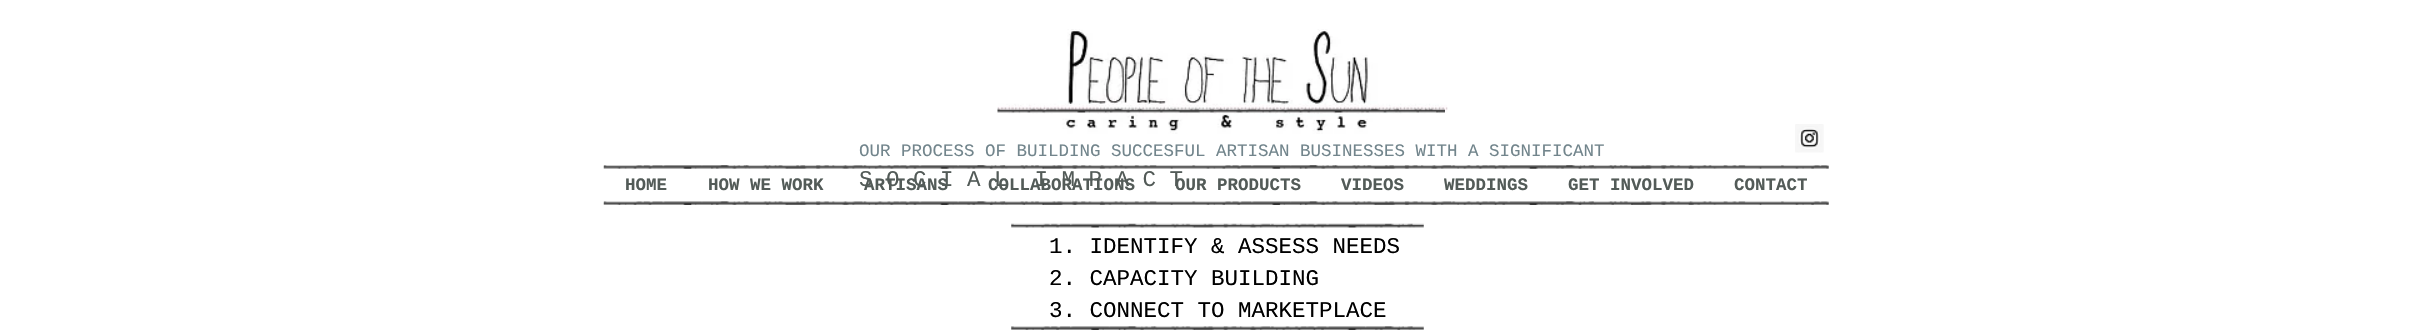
void draw(SkCanvas* canvas) {
    SkPaint paint;
    paint.setAntiAlias(true);
    canvas->clear(0xFFFFFFFF);
    canvas->drawImageRect(SkImages::DeferredFromEncodedData(SkData::MakeFromFileName("img1.png")), SkRect::MakeXYWH(997, 29, 451, 105), SkSamplingOptions());
    canvas->drawImageRect(SkImages::DeferredFromEncodedData(SkData::MakeFromFileName("img2.png")), SkRect::MakeXYWH(997, 108, 448, 5), SkSamplingOptions());
    canvas->drawImageRect(SkImages::DeferredFromEncodedData(SkData::MakeFromFileName("img3.png")), SkRect::MakeXYWH(1795, 124, 29, 29), SkSamplingOptions());
    canvas->drawImageRect(SkImages::DeferredFromEncodedData(SkData::MakeFromFileName("img4.png")), SkRect::MakeXYWH(603, 165, 1226, 4), SkSamplingOptions());
    SkFont font1(fontMgr->matchFamilyStyle("Liberation Mono", SkFontStyle::Normal()), 17.5f);
    font1.setSubpixel(true);
    paint.setColor(0xFF72858C);
    canvas->drawString("OUR PROCESS OF BUILDING SUCCESFUL ARTISAN BUSINESSES WITH A SIGNIFICANT", 859, 156, font1, paint);
    SkFont font2(fontMgr->matchFamilyStyle("Liberation Mono", SkFontStyle::Bold()), 17.5f);
    font2.setSubpixel(true);
    paint.setColor(0xFF535B58);
    canvas->drawString("ARTISANS", 864, 190, font2, paint);
    canvas->drawString("COLLABORATIONS", 988, 190, font2, paint);
    canvas->drawString("OUR PRODUCTS", 1175, 190, font2, paint);
    SkFont font3(fontMgr->matchFamilyStyle("Liberation Mono", SkFontStyle::Normal()), 22.5f);
    font3.setSubpixel(true);
    canvas->drawString("S O C I A L  I M P A C T", 859, 186, font3, paint);
    canvas->drawImageRect(SkImages::DeferredFromEncodedData(SkData::MakeFromFileName("img5.png")), SkRect::MakeXYWH(1011, 223, 413, 5), SkSamplingOptions());
    paint.setColor(0xFF000000);
    canvas->drawString("1. IDENTIFY & ASSESS NEEDS", 1049, 253, font3, paint);
    canvas->drawString("2. CAPACITY BUILDING", 1049, 285, font3, paint);
    canvas->drawString("3. CONNECT TO MARKETPLACE", 1049, 317, font3, paint);
    canvas->drawImageRect(SkImages::DeferredFromEncodedData(SkData::MakeFromFileName("img6.png")), SkRect::MakeXYWH(1011, 326, 413, 4), SkSamplingOptions());
    paint.setColor(0xFF535B58);
    canvas->drawString("HOME", 625, 190, font2, paint);
    canvas->drawString("HOW WE WORK", 708, 190, font2, paint);
    canvas->drawString("VIDEOS", 1341, 190, font2, paint);
    canvas->drawString("WEDDINGS", 1444, 190, font2, paint);
    canvas->drawString("GET INVOLVED", 1568, 190, font2, paint);
    canvas->drawString("CONTACT", 1734, 190, font2, paint);
    canvas->drawImageRect(SkImages::DeferredFromEncodedData(SkData::MakeFromFileName("img7.png")), SkRect::MakeXYWH(603, 201, 1226, 4), SkSamplingOptions());
}
